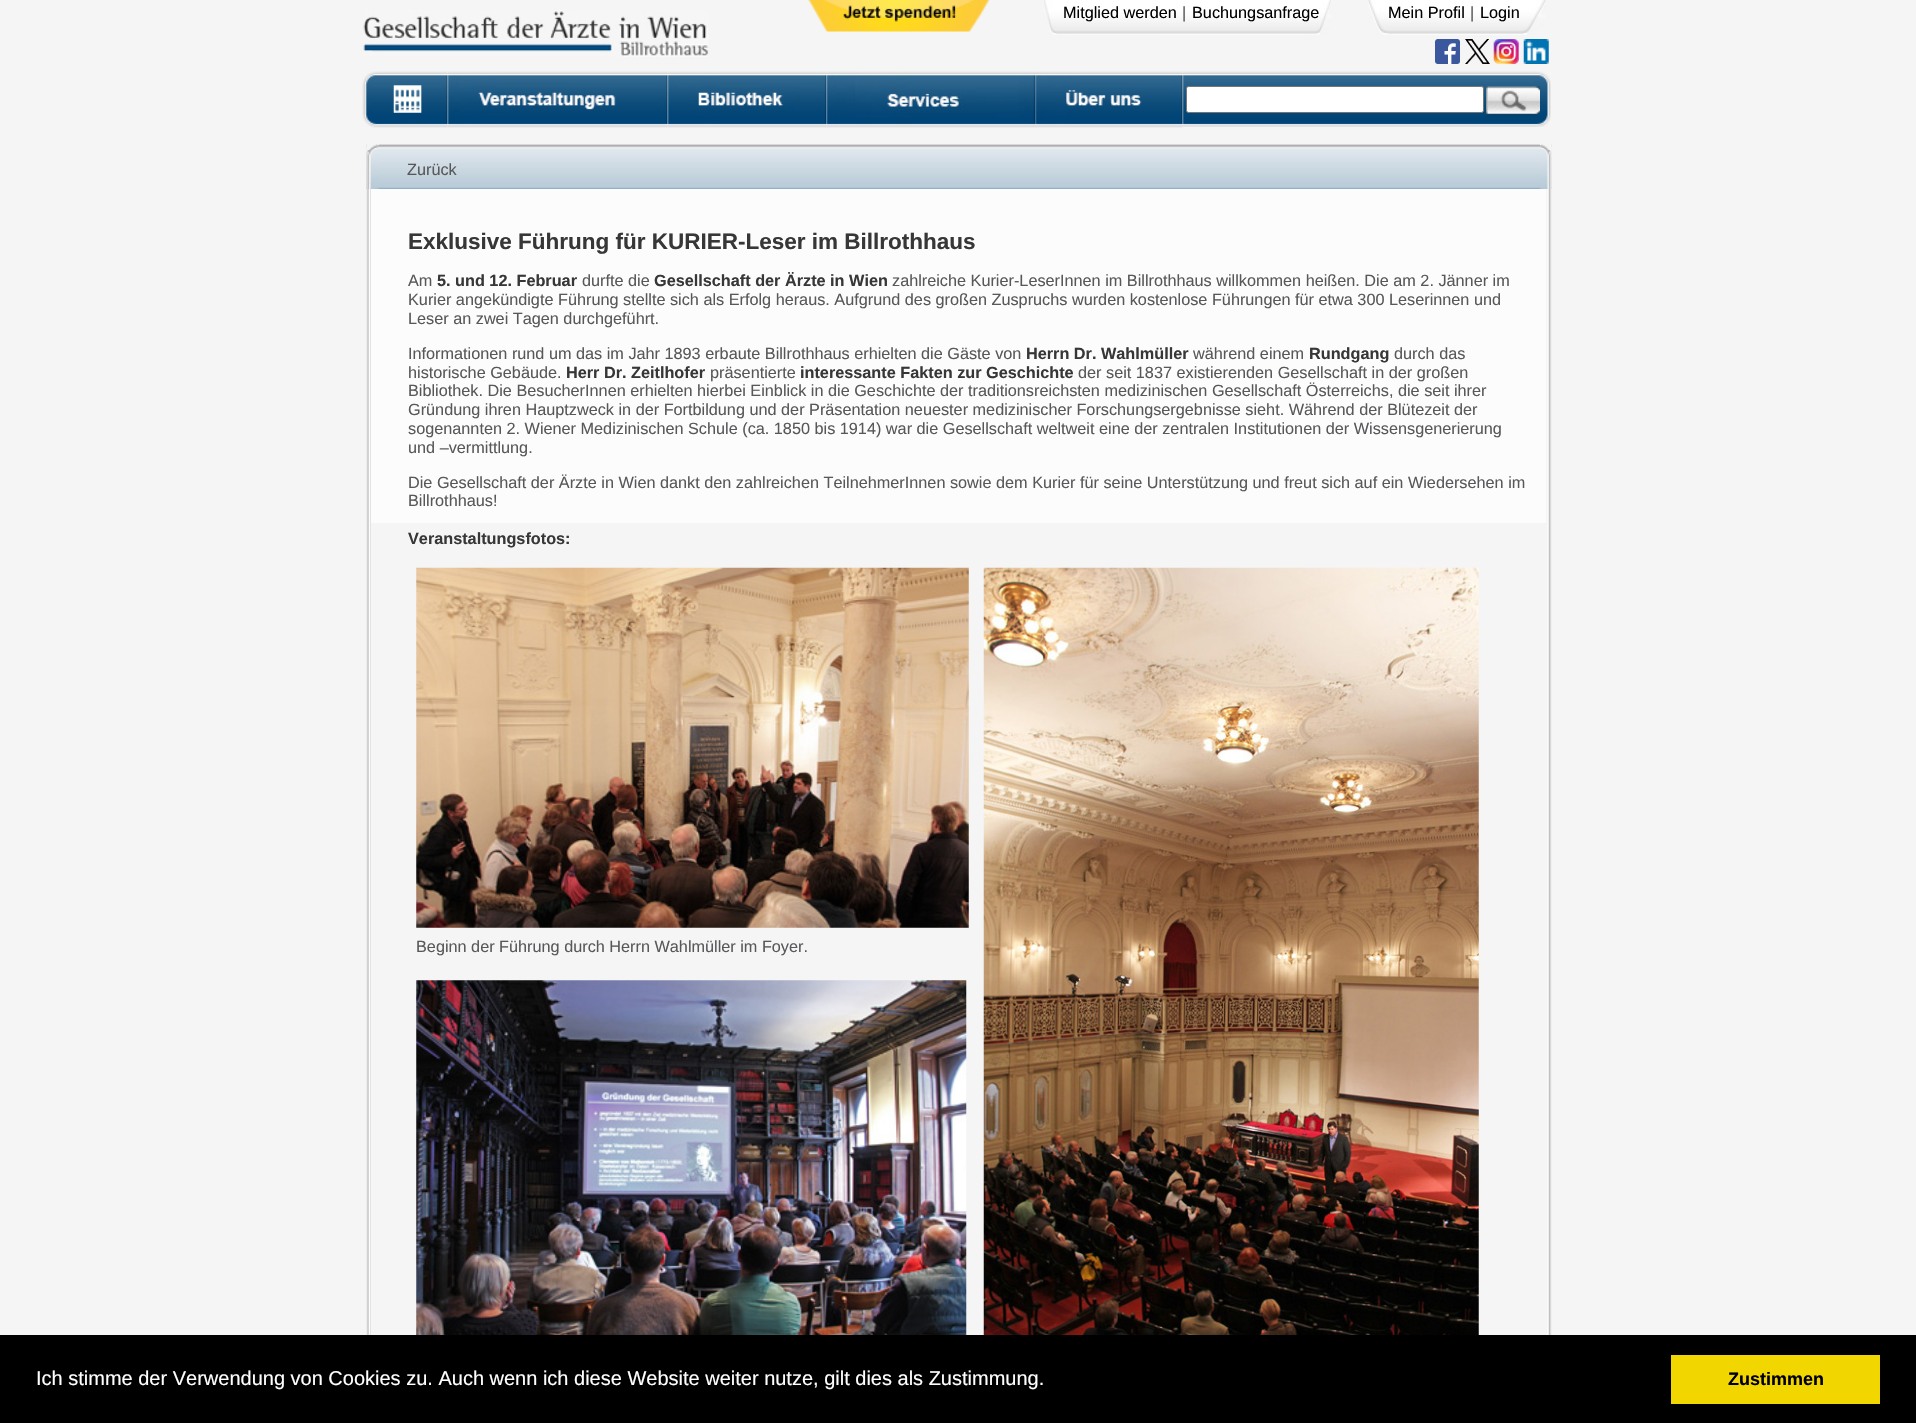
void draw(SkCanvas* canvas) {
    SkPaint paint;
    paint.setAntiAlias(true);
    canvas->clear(0xFFF5F5F5);
    canvas->drawImageRect(SkImages::DeferredFromEncodedData(SkData::MakeFromFileName("img1.png")), SkRect::MakeXYWH(363, 10, 346, 47), SkSamplingOptions());
    canvas->drawImageRect(SkImages::DeferredFromEncodedData(SkData::MakeFromFileName("img2.png")), SkRect::MakeXYWH(808, 0, 182, 32), SkSamplingOptions());
    canvas->drawImageRect(SkImages::DeferredFromEncodedData(SkData::MakeFromFileName("img3.png")), SkRect::MakeXYWH(1044, 0, 287, 35), SkSamplingOptions());
    SkFont font1(fontMgr->matchFamilyStyle("Liberation Sans", SkFontStyle::Normal()), 16.25f);
    font1.setSubpixel(true);
    paint.setColor(0xFF000000);
    canvas->drawString("Mitglied werden", 1063, 18, font1, paint);
    paint.setColor(0xFF58585A);
    canvas->drawString("|", 1182, 18, font1, paint);
    paint.setColor(0xFF000000);
    canvas->drawString("Buchungsanfrage", 1192, 18, font1, paint);
    canvas->drawImageRect(SkImages::DeferredFromEncodedData(SkData::MakeFromFileName("img4.png")), SkRect::MakeXYWH(1368, 0, 178, 35), SkSamplingOptions());
    canvas->drawString("Mein Profil", 1388, 18, font1, paint);
    paint.setColor(0xFF58585A);
    canvas->drawString("|", 1470, 18, font1, paint);
    paint.setColor(0xFF000000);
    canvas->drawString("Login", 1480, 18, font1, paint);
    canvas->drawImageRect(SkImages::DeferredFromEncodedData(SkData::MakeFromFileName("img5.png")), SkRect::MakeXYWH(1435, 39, 25, 25), SkSamplingOptions());
    canvas->drawImageRect(SkImages::DeferredFromEncodedData(SkData::MakeFromFileName("img6.png")), SkRect::MakeXYWH(1465, 39, 25, 25), SkSamplingOptions());
    canvas->drawImageRect(SkImages::DeferredFromEncodedData(SkData::MakeFromFileName("img7.png")), SkRect::MakeXYWH(1493, 39, 26, 25), SkSamplingOptions());
    canvas->drawImageRect(SkImages::DeferredFromEncodedData(SkData::MakeFromFileName("img8.png")), SkRect::MakeXYWH(1523, 39, 26, 25), SkSamplingOptions());
    canvas->drawImageRect(SkImages::DeferredFromEncodedData(SkData::MakeFromFileName("img9.png")), SkRect::MakeXYWH(362, 71, 86, 57), SkSamplingOptions());
    canvas->drawImageRect(SkImages::DeferredFromEncodedData(SkData::MakeFromFileName("img10.png")), SkRect::MakeXYWH(447, 71, 221, 57), SkSamplingOptions());
    canvas->drawImageRect(SkImages::DeferredFromEncodedData(SkData::MakeFromFileName("img11.png")), SkRect::MakeXYWH(667, 71, 160, 57), SkSamplingOptions());
    canvas->drawImageRect(SkImages::DeferredFromEncodedData(SkData::MakeFromFileName("img12.png")), SkRect::MakeXYWH(826, 71, 209, 57), SkSamplingOptions());
    canvas->drawImageRect(SkImages::DeferredFromEncodedData(SkData::MakeFromFileName("img13.png")), SkRect::MakeXYWH(1035, 71, 148, 57), SkSamplingOptions());
    canvas->drawImageRect(SkImages::DeferredFromEncodedData(SkData::MakeFromFileName("img14.png")), SkRect::MakeXYWH(1182, 71, 369, 56), SkSamplingOptions());
    paint.setColor(0xFFFFFFFF);
    canvas->drawRoundRect(SkRect::MakeXYWH(1186.5f, 86.5f, 297, 26), 2, 2, paint);
    paint.setStyle(SkPaint::kStroke_Style);
    paint.setStrokeWidth(1);
    paint.setColor(0xFF767676);
    canvas->drawRoundRect(SkRect::MakeXYWH(1186.5f, 86.5f, 297, 26), 2, 2, paint);
    canvas->drawImageRect(SkImages::DeferredFromEncodedData(SkData::MakeFromFileName("img15.png")), SkRect::MakeXYWH(1486, 86, 54, 30), SkSamplingOptions());
    canvas->drawImageRect(SkImages::DeferredFromEncodedData(SkData::MakeFromFileName("img16.png")), SkRect::MakeXYWH(366, 144, 1186, 45), SkSamplingOptions());
    canvas->drawImageRect(SkImages::DeferredFromEncodedData(SkData::MakeFromFileName("img17.png")), SkRect::MakeXYWH(1540, 144, 12, 45), SkSamplingOptions());
    canvas->drawImageRect(SkImages::DeferredFromEncodedData(SkData::MakeFromFileName("img18.png")), SkRect::MakeXYWH(366, 144, 13, 45), SkSamplingOptions());
    paint.setStyle(SkPaint::kFill_Style);
    paint.setColor(0xFF58585A);
    canvas->drawString("Zurück", 407, 175, font1, paint);
    canvas->drawImageRect(SkImages::DeferredFromEncodedData(SkData::MakeFromFileName("img19.png")), SkRect::MakeXYWH(366, 189, 5, 1146), SkSamplingOptions());
    canvas->drawImageRect(SkImages::DeferredFromEncodedData(SkData::MakeFromFileName("img20.png")), SkRect::MakeXYWH(1547, 189, 5, 1146), SkSamplingOptions());
    paint.setColor(0xFFFCFCFC);
    canvas->drawRect(SkRect::MakeXYWH(371, 189, 1175, 334), paint);
    SkFont font2(fontMgr->matchFamilyStyle("Liberation Sans", SkFontStyle::Bold()), 22.5f);
    font2.setSubpixel(true);
    paint.setColor(0xFF383737);
    canvas->drawString("Exklusive Führung für KURIER-Leser im Billrothhaus", 408, 249, font2, paint);
    paint.setColor(0xFF58585A);
    canvas->drawString("Am", 408, 286, font1, paint);
    SkFont font3(fontMgr->matchFamilyStyle("Liberation Sans", SkFontStyle::Bold()), 16.25f);
    font3.setSubpixel(true);
    paint.setColor(0xFF383737);
    canvas->drawString("5. und 12. Februar", 437, 286, font3, paint);
    paint.setColor(0xFF58585A);
    canvas->drawString("durfte die", 582, 286, font1, paint);
    paint.setColor(0xFF383737);
    canvas->drawString("Gesellschaft der Ärzte in Wien", 654, 286, font3, paint);
    paint.setColor(0xFF58585A);
    canvas->drawString("zahlreiche Kurier-LeserInnen im Billrothhaus willkommen heißen. Die am 2. Jänner im", 892, 286, font1, paint);
    canvas->drawString("Kurier angekündigte Führung stellte sich als Erfolg heraus. Aufgrund des großen Zuspruchs wurden kostenlose Führungen für etwa 300 Leserinnen und", 408, 305, font1, paint);
    canvas->drawString("Leser an zwei Tagen durchgeführt.", 408, 324, font1, paint);
    canvas->drawString("Informationen rund um das im Jahr 1893 erbaute Billrothhaus erhielten die Gäste von", 408, 359, font1, paint);
    paint.setColor(0xFF383737);
    canvas->drawString("Herrn Dr. Wahlmüller", 1026, 359, font3, paint);
    paint.setColor(0xFF58585A);
    canvas->drawString("während einem", 1193, 359, font1, paint);
    paint.setColor(0xFF383737);
    canvas->drawString("Rundgang", 1309, 359, font3, paint);
    paint.setColor(0xFF58585A);
    canvas->drawString("durch das", 1394, 359, font1, paint);
    canvas->drawString("historische Gebäude.", 408, 378, font1, paint);
    paint.setColor(0xFF383737);
    canvas->drawString("Herr Dr. Zeitlhofer", 566, 378, font3, paint);
    paint.setColor(0xFF58585A);
    canvas->drawString("präsentierte", 710, 378, font1, paint);
    paint.setColor(0xFF383737);
    canvas->drawString("interessante Fakten zur Geschichte", 800, 378, font3, paint);
    paint.setColor(0xFF58585A);
    canvas->drawString("der seit 1837 existierenden Gesellschaft in der großen", 1078, 378, font1, paint);
    canvas->drawString("Bibliothek. Die BesucherInnen erhielten hierbei Einblick in die Geschichte der traditionsreichsten medizinischen Gesellschaft Österreichs, die seit ihrer", 408, 396, font1, paint);
    canvas->drawString("Gründung ihren Hauptzweck in der Fortbildung und der Präsentation neuester medizinischer Forschungsergebnisse sieht. Während der Blütezeit der", 408, 415, font1, paint);
    canvas->drawString("sogenannten 2. Wiener Medizinischen Schule (ca. 1850 bis 1914) war die Gesellschaft weltweit eine der zentralen Institutionen der Wissensgenerierung", 408, 434, font1, paint);
    canvas->drawString("und –vermittlung.", 408, 453, font1, paint);
    canvas->drawString("Die Gesellschaft der Ärzte in Wien dankt den zahlreichen TeilnehmerInnen sowie dem Kurier für seine Unterstützung und freut sich auf ein Wiedersehen im", 408, 488, font1, paint);
    canvas->drawString("Billrothhaus!", 408, 506, font1, paint);
    paint.setColor(0xFF383737);
    canvas->drawString("Veranstaltungsfotos:", 408, 544, font3, paint);
    canvas->drawImageRect(SkImages::DeferredFromEncodedData(SkData::MakeFromFileName("img21.png")), SkRect::MakeXYWH(416, 567, 553, 361), SkSamplingOptions());
    canvas->drawImageRect(SkImages::DeferredFromEncodedData(SkData::MakeFromFileName("img22.png")), SkRect::MakeXYWH(983, 567, 496, 768), SkSamplingOptions());
    paint.setColor(0xFF58585A);
    canvas->drawString("Beginn der Führung durch Herrn Wahlmüller im Foyer.", 416, 952, font1, paint);
    canvas->drawImageRect(SkImages::DeferredFromEncodedData(SkData::MakeFromFileName("img23.png")), SkRect::MakeXYWH(416, 980, 551, 355), SkSamplingOptions());
    paint.setColor(0xFF000000);
    canvas->drawRect(SkRect::MakeXYWH(0, 1335, 1916, 88), paint);
    SkFont font4(fontMgr->matchFamilyStyle("Liberation Sans", SkFontStyle::Normal()), 20);
    font4.setSubpixel(true);
    paint.setColor(0xFFFFFFFF);
    canvas->drawString("Ich stimme der Verwendung von Cookies zu. Auch wenn ich diese Website weiter nutze, gilt dies als Zustimmung.", 36, 1385, font4, paint);
    paint.setColor(0xFFF1D600);
    canvas->drawRect(SkRect::MakeXYWH(1671, 1355, 209, 49), paint);
    SkFont font5(fontMgr->matchFamilyStyle("Liberation Sans", SkFontStyle::Bold()), 18);
    font5.setSubpixel(true);
    paint.setColor(0xFF000000);
    canvas->drawString("Zustimmen", 1728, 1385, font5, paint);
}
